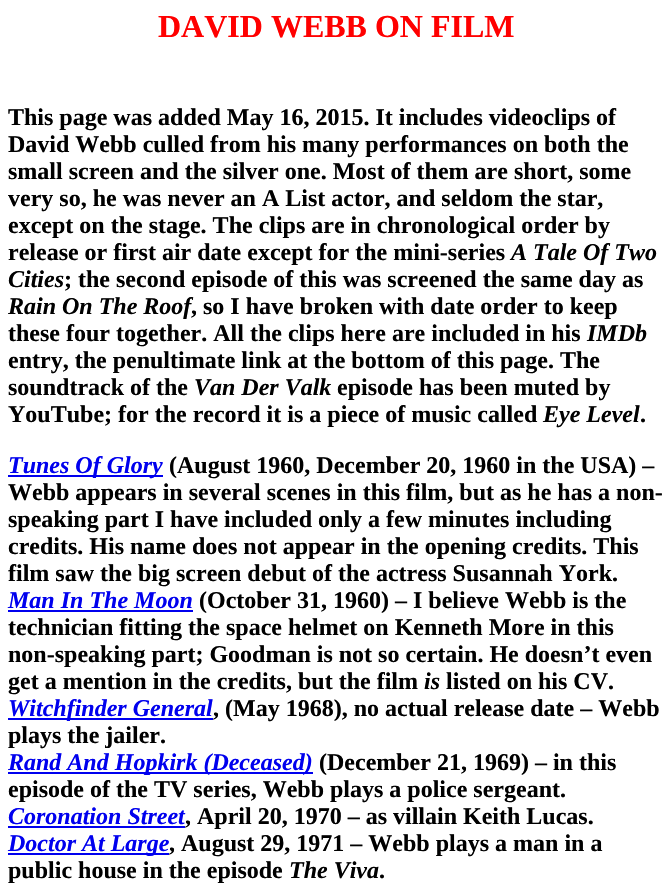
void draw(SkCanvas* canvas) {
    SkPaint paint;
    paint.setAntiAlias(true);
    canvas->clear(0xFFFFFFFF);
    SkFont font1(fontMgr->matchFamilyStyle("Liberation Serif", SkFontStyle::Bold()), 32);
    font1.setSubpixel(true);
    paint.setColor(0xFFFF0000);
    canvas->drawString("DAVID WEBB ON FILM", 158, 37, font1, paint);
    SkFont font2(fontMgr->matchFamilyStyle("Liberation Serif", SkFontStyle::Bold()), 24);
    font2.setSubpixel(true);
    paint.setColor(0xFF000000);
    canvas->drawString("This page was added May 16, 2015. It includes videoclips of", 8, 125, font2, paint);
    canvas->drawString("David Webb culled from his many performances on both the", 8, 152, font2, paint);
    canvas->drawString("small screen and the silver one. Most of them are short, some", 8, 179, font2, paint);
    canvas->drawString("very so, he was never an A List actor, and seldom the star,", 8, 206, font2, paint);
    canvas->drawString("except on the stage. The clips are in chronological order by", 8, 233, font2, paint);
    canvas->drawString("release or first air date except for the mini-series", 8, 260, font2, paint);
    SkFont font3(fontMgr->matchFamilyStyle("Liberation Serif", SkFontStyle::BoldItalic()), 24);
    font3.setSubpixel(true);
    canvas->drawString("A Tale Of Two", 511, 260, font3, paint);
    canvas->drawString("Cities", 8, 287, font3, paint);
    canvas->drawString("; the second episode of this was screened the same day as", 64, 287, font2, paint);
    canvas->drawString("Rain On The Roof", 8, 314, font3, paint);
    canvas->drawString(", so I have broken with date order to keep", 191, 314, font2, paint);
    canvas->drawString("these four together. All the clips here are included in his", 8, 341, font2, paint);
    canvas->drawString("IMDb", 587, 341, font3, paint);
    canvas->drawString("entry, the penultimate link at the bottom of this page. The", 8, 368, font2, paint);
    canvas->drawString("soundtrack of the", 8, 395, font2, paint);
    canvas->drawString("Van Der Valk", 194, 395, font3, paint);
    canvas->drawString("episode has been muted by", 337, 395, font2, paint);
    canvas->drawString("YouTube; for the record it is a piece of music called", 8, 422, font2, paint);
    canvas->drawString("Eye Level", 543, 422, font3, paint);
    canvas->drawString(".", 640, 422, font2, paint);
    paint.setColor(0xFF0000EE);
    canvas->drawRect(SkRect::MakeXYWH(8, 475, 155, 2), paint);
    canvas->drawString("Tunes Of Glory", 8, 473, font3, paint);
    paint.setColor(0xFF000000);
    canvas->drawString("(August 1960, December 20, 1960 in the USA) –", 169, 473, font2, paint);
    canvas->drawString("Webb appears in several scenes in this film, but as he has a non-", 8, 500, font2, paint);
    canvas->drawString("speaking part I have included only a few minutes including", 8, 527, font2, paint);
    canvas->drawString("credits. His name does not appear in the opening credits. This", 8, 554, font2, paint);
    canvas->drawString("film saw the big screen debut of the actress Susannah York.", 8, 581, font2, paint);
    paint.setColor(0xFF0000EE);
    canvas->drawString("Man In The Moon", 8, 608, font3, paint);
    canvas->drawRect(SkRect::MakeXYWH(8, 610, 185, 2), paint);
    paint.setColor(0xFF000000);
    canvas->drawString("(October 31, 1960) – I believe Webb is the", 199, 608, font2, paint);
    canvas->drawString("technician fitting the space helmet on Kenneth More in this", 8, 635, font2, paint);
    canvas->drawString("non-speaking part; Goodman is not so certain. He doesn’t even", 8, 662, font2, paint);
    canvas->drawString("get a mention in the credits, but the film", 8, 689, font2, paint);
    canvas->drawString("is", 424, 689, font3, paint);
    canvas->drawString("listed on his CV.", 446, 689, font2, paint);
    paint.setColor(0xFF0000EE);
    canvas->drawRect(SkRect::MakeXYWH(8, 718, 205, 2), paint);
    canvas->drawString("Witchfinder General", 8, 716, font3, paint);
    paint.setColor(0xFF000000);
    canvas->drawString(", (May 1968), no actual release date – Webb", 213, 716, font2, paint);
    canvas->drawString("plays the jailer.", 8, 743, font2, paint);
    paint.setColor(0xFF0000EE);
    canvas->drawRect(SkRect::MakeXYWH(8, 772, 305, 2), paint);
    canvas->drawString("Rand And Hopkirk (Deceased)", 8, 770, font3, paint);
    paint.setColor(0xFF000000);
    canvas->drawString("(December 21, 1969) – in this", 319, 770, font2, paint);
    canvas->drawString("episode of the TV series, Webb plays a police sergeant.", 8, 797, font2, paint);
    paint.setColor(0xFF0000EE);
    canvas->drawString("Coronation Street", 8, 824, font3, paint);
    canvas->drawRect(SkRect::MakeXYWH(8, 826, 177, 2), paint);
    paint.setColor(0xFF000000);
    canvas->drawString(", April 20, 1970 – as villain Keith Lucas.", 185, 824, font2, paint);
    paint.setColor(0xFF0000EE);
    canvas->drawRect(SkRect::MakeXYWH(8, 853, 161, 2), paint);
    canvas->drawString("Doctor At Large", 8, 851, font3, paint);
    paint.setColor(0xFF000000);
    canvas->drawString(", August 29, 1971 – Webb plays a man in a", 169, 851, font2, paint);
    canvas->drawString("public house in the episode", 8, 878, font2, paint);
    canvas->drawString("The Viva", 289, 878, font3, paint);
    canvas->drawString(".", 379, 878, font2, paint);
}
